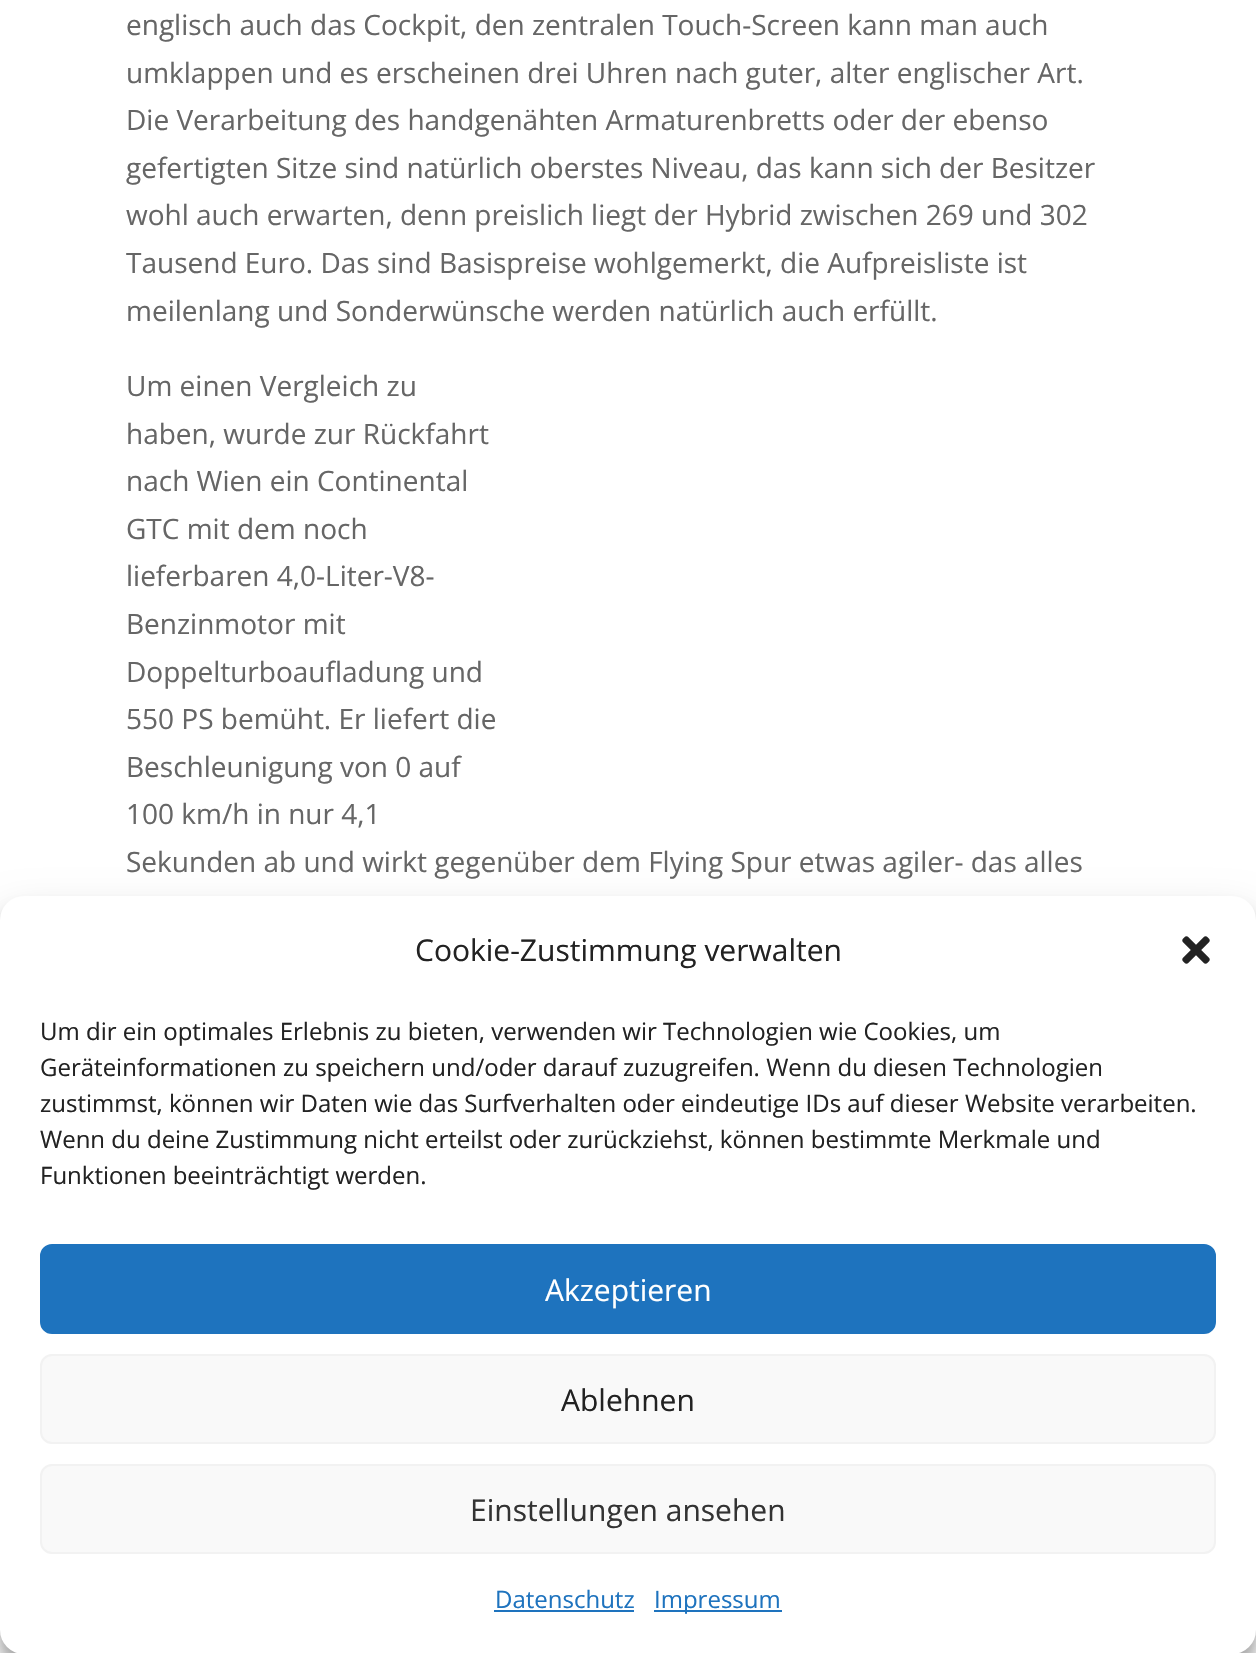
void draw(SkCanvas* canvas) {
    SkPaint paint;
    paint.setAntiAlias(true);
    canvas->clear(0xFFFFFFFF);
    SkFont font1(fontMgr->matchFamilyStyle("Open Sans", SkFontStyle::Normal()), 28);
    font1.setSubpixel(true);
    paint.setColor(0xFF666666);
    canvas->drawString("englisch auch das Cockpit, den zentralen Touch-Screen kann man auch", 126, 35, font1, paint);
    canvas->drawString("umklappen und es erscheinen drei Uhren nach guter, alter englischer Art.", 126, 83, font1, paint);
    canvas->drawString("Die Verarbeitung des handgenähten Armaturenbretts oder der ebenso", 126, 130, font1, paint);
    canvas->drawString("gefertigten Sitze sind natürlich oberstes Niveau, das kann sich der Besitzer", 126, 178, font1, paint);
    canvas->drawString("wohl auch erwarten, denn preislich liegt der Hybrid zwischen 269 und 302", 126, 225, font1, paint);
    canvas->drawString("Tausend Euro. Das sind Basispreise wohlgemerkt, die Aufpreisliste ist", 126, 273, font1, paint);
    canvas->drawString("meilenlang und Sonderwünsche werden natürlich auch erfüllt.", 126, 321, font1, paint);
    canvas->drawString("Um einen Vergleich zu", 126, 396, font1, paint);
    canvas->drawString("haben, wurde zur Rückfahrt", 126, 444, font1, paint);
    canvas->drawString("nach Wien ein Continental", 126, 491, font1, paint);
    canvas->drawString("GTC mit dem noch", 126, 539, font1, paint);
    canvas->drawString("lieferbaren 4,0-Liter-V8-", 126, 586, font1, paint);
    canvas->drawString("Benzinmotor mit", 126, 634, font1, paint);
    canvas->drawString("Doppelturboaufladung und", 126, 682, font1, paint);
    canvas->drawString("550 PS bemüht. Er liefert die", 126, 729, font1, paint);
    canvas->drawString("Beschleunigung von 0 auf", 126, 777, font1, paint);
    canvas->drawString("100 km/h in nur 4,1", 126, 824, font1, paint);
    canvas->drawString("Sekunden ab und wirkt gegenüber dem Flying Spur etwas agiler- das alles", 126, 872, font1, paint);
    paint.setColor(0x3B000000);
    paint.setMaskFilter(SkMaskFilter::MakeBlur(kNormal_SkBlurStyle, 6));
    canvas->drawRoundRect(SkRect::MakeXYWH(0, 908, 1256, 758), 24, 24, paint);
    paint.setMaskFilter(nullptr);
    paint.setColor(0x30000000);
    paint.setMaskFilter(SkMaskFilter::MakeBlur(kNormal_SkBlurStyle, 20));
    canvas->drawRoundRect(SkRect::MakeXYWH(0, 916, 1256, 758), 24, 24, paint);
    paint.setMaskFilter(nullptr);
    paint.setColor(0xFFFFFFFF);
    canvas->drawRoundRect(SkRect::MakeXYWH(0, 896, 1256, 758), 24, 24, paint);
    SkFont font2(fontMgr->matchFamilyStyle("Open Sans", SkFontStyle::Normal()), 30);
    font2.setSubpixel(true);
    paint.setColor(0xFF222222);
    canvas->drawString("Cookie-Zustimmung verwalten", 415, 961, font2, paint);
    canvas->drawImageRect(SkImages::DeferredFromEncodedData(SkData::MakeFromFileName("img1.png")), SkRect::MakeXYWH(1182, 936, 28, 28), SkSamplingOptions());
    SkFont font3(fontMgr->matchFamilyStyle("Open Sans", SkFontStyle::Normal()), 24);
    font3.setSubpixel(true);
    canvas->drawString("Um dir ein optimales Erlebnis zu bieten, verwenden wir Technologien wie Cookies, um", 40, 1040, font3, paint);
    canvas->drawString("Geräteinformationen zu speichern und/oder darauf zuzugreifen. Wenn du diesen Technologien", 40, 1076, font3, paint);
    canvas->drawString("zustimmst, können wir Daten wie das Surfverhalten oder eindeutige IDs auf dieser Website verarbeiten.", 40, 1112, font3, paint);
    canvas->drawString("Wenn du deine Zustimmung nicht erteilst oder zurückziehst, können bestimmte Merkmale und", 40, 1148, font3, paint);
    canvas->drawString("Funktionen beeinträchtigt werden.", 40, 1184, font3, paint);
    paint.setColor(0xFF1E73BE);
    canvas->drawRoundRect(SkRect::MakeXYWH(41, 1245, 1174, 88), 11, 11, paint);
    paint.setStyle(SkPaint::kStroke_Style);
    paint.setStrokeWidth(2);
    canvas->drawRoundRect(SkRect::MakeXYWH(41, 1245, 1174, 88), 11, 11, paint);
    paint.setStyle(SkPaint::kFill_Style);
    paint.setColor(0xFFFFFFFF);
    canvas->drawString("Akzeptieren", 545, 1301, font2, paint);
    paint.setColor(0xFFF9F9F9);
    canvas->drawRoundRect(SkRect::MakeXYWH(41, 1355, 1174, 88), 11, 11, paint);
    paint.setStyle(SkPaint::kStroke_Style);
    paint.setColor(0xFFF2F2F2);
    canvas->drawRoundRect(SkRect::MakeXYWH(41, 1355, 1174, 88), 11, 11, paint);
    paint.setStyle(SkPaint::kFill_Style);
    paint.setColor(0xFF222222);
    canvas->drawString("Ablehnen", 561, 1411, font2, paint);
    paint.setColor(0xFFF9F9F9);
    canvas->drawRoundRect(SkRect::MakeXYWH(41, 1465, 1174, 88), 11, 11, paint);
    paint.setStyle(SkPaint::kStroke_Style);
    paint.setColor(0xFFF2F2F2);
    canvas->drawRoundRect(SkRect::MakeXYWH(41, 1465, 1174, 88), 11, 11, paint);
    paint.setStyle(SkPaint::kFill_Style);
    paint.setColor(0xFF333333);
    canvas->drawString("Einstellungen ansehen", 470, 1521, font2, paint);
    paint.setColor(0xFF1E73BE);
    canvas->drawString("Datenschutz", 495, 1608, font3, paint);
    canvas->drawRect(SkRect::MakeXYWH(494, 1610, 140, 2), paint);
    canvas->drawRect(SkRect::MakeXYWH(654, 1610, 128, 2), paint);
    canvas->drawString("Impressum", 654, 1608, font3, paint);
}
